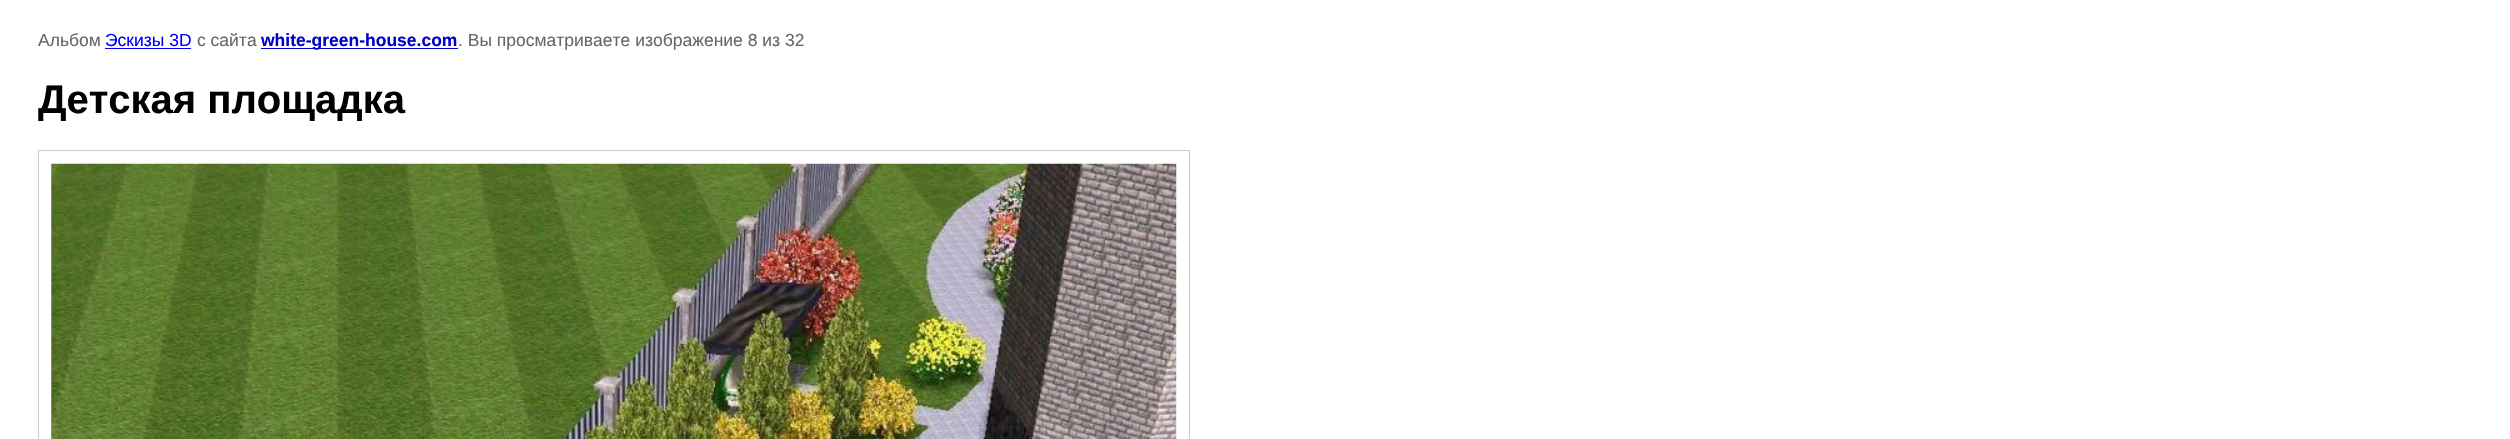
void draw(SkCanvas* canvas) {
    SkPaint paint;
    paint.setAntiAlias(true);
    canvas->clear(0xFFFFFFFF);
    SkFont font1(fontMgr->matchFamilyStyle("Liberation Sans", SkFontStyle::Normal()), 17.5f);
    font1.setSubpixel(true);
    paint.setColor(0xFF666666);
    canvas->drawString("Альбом", 38, 46, font1, paint);
    paint.setColor(0xFF0000FF);
    canvas->drawString("Эскизы 3D", 105, 46, font1, paint);
    canvas->drawRect(SkRect::MakeXYWH(105, 48, 86, 1), paint);
    paint.setColor(0xFF666666);
    canvas->drawString("с сайта", 197, 46, font1, paint);
    paint.setColor(0xFF0000CC);
    canvas->drawRect(SkRect::MakeXYWH(261, 48, 197, 1), paint);
    SkFont font2(fontMgr->matchFamilyStyle("Liberation Sans", SkFontStyle::Bold()), 17.5f);
    font2.setSubpixel(true);
    canvas->drawString("white-green-house.com", 261, 46, font2, paint);
    paint.setColor(0xFF666666);
    canvas->drawString(". Вы просматриваете изображение 8 из 32", 458, 46, font1, paint);
    SkFont font3(fontMgr->matchFamilyStyle("Liberation Sans", SkFontStyle::Bold()), 40);
    font3.setSubpixel(true);
    paint.setColor(0xFF000000);
    canvas->drawString("Детская площадка", 38, 113, font3, paint);
    paint.setStyle(SkPaint::kStroke_Style);
    paint.setStrokeWidth(1);
    paint.setColor(0xFFCCCCCC);
    canvas->drawRect(SkRect::MakeXYWH(38.5f, 150.5f, 1151, 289), paint);
    canvas->drawImageRect(SkImages::DeferredFromEncodedData(SkData::MakeFromFileName("img1.png")), SkRect::MakeXYWH(51, 163, 1126, 276), SkSamplingOptions());
}
